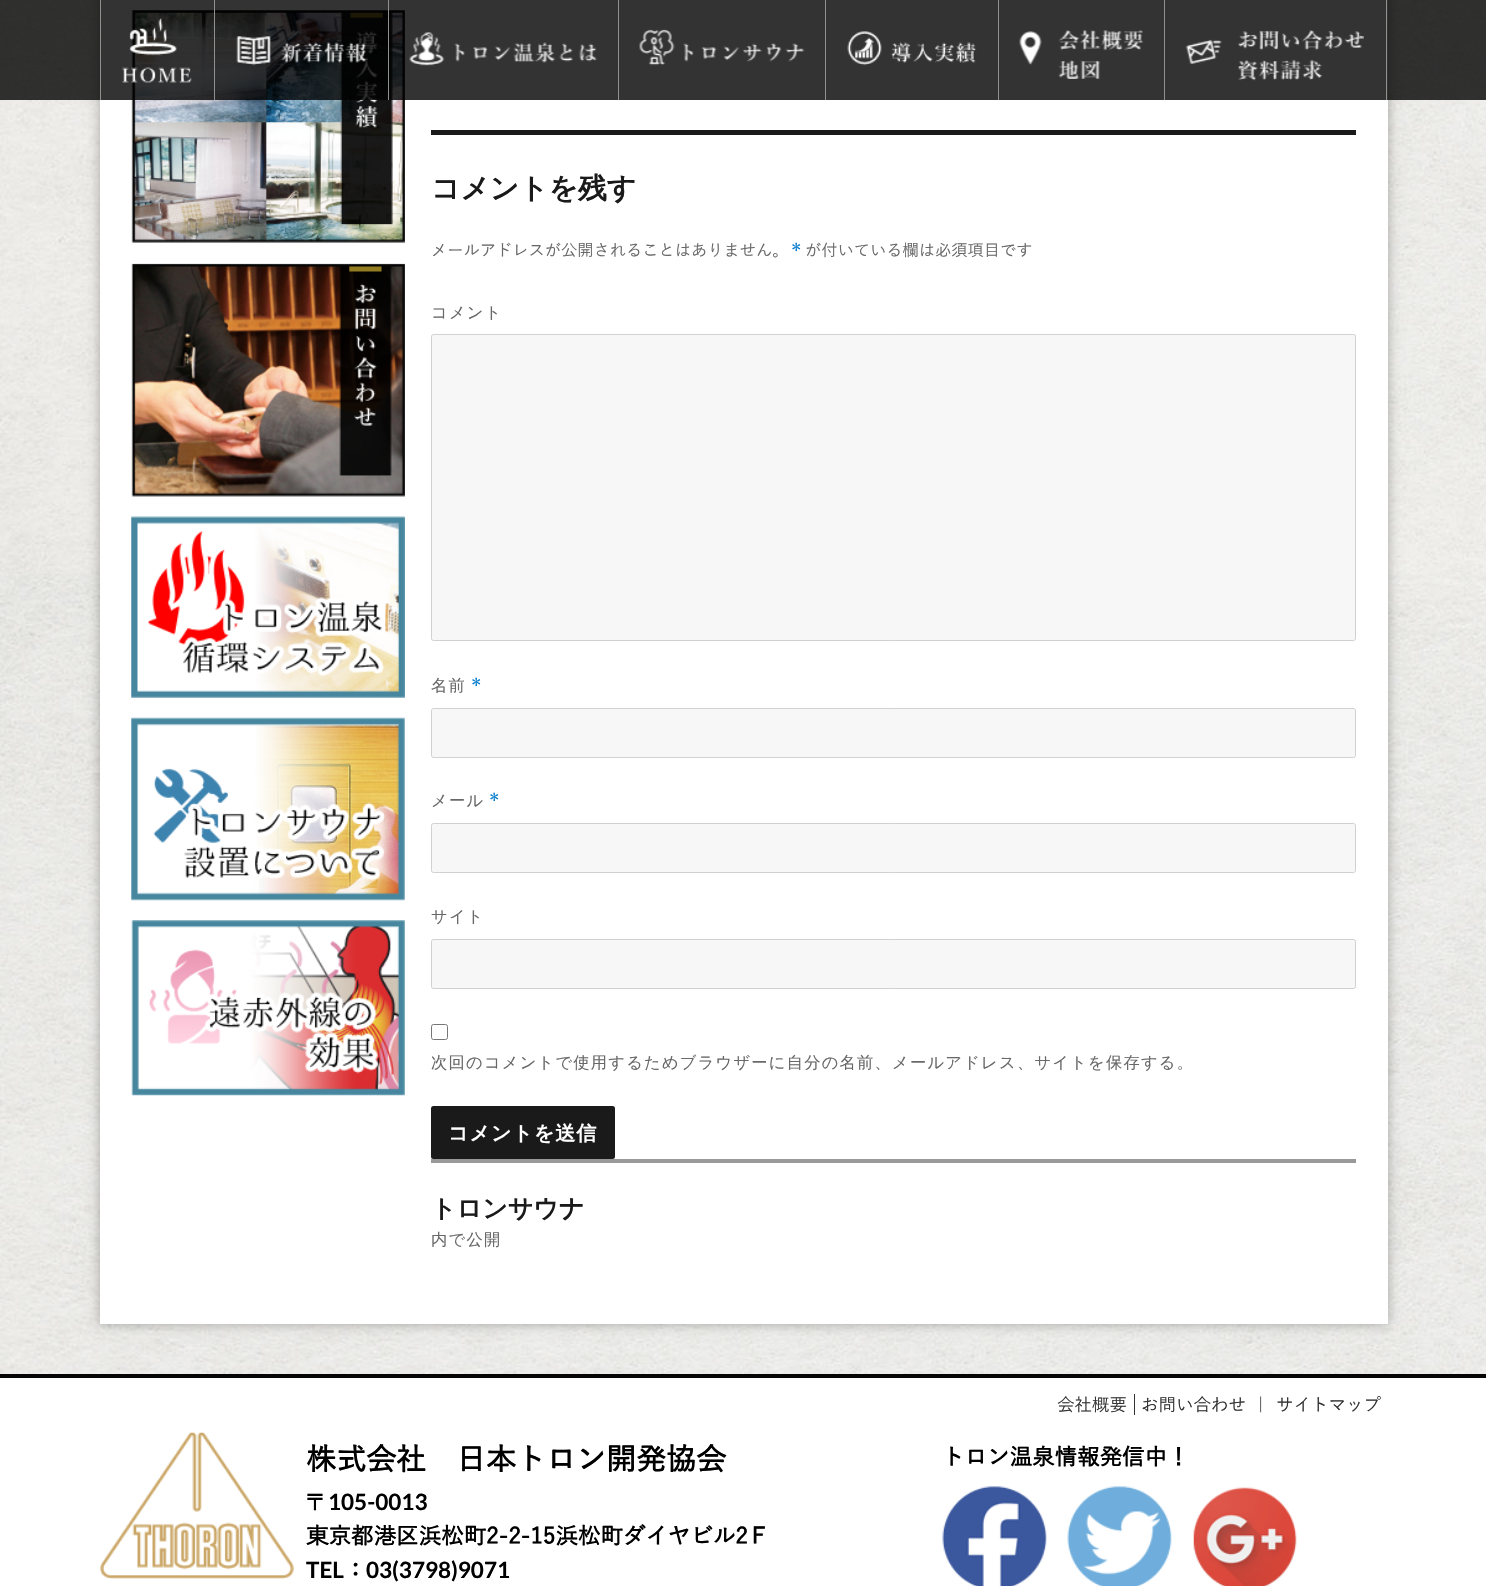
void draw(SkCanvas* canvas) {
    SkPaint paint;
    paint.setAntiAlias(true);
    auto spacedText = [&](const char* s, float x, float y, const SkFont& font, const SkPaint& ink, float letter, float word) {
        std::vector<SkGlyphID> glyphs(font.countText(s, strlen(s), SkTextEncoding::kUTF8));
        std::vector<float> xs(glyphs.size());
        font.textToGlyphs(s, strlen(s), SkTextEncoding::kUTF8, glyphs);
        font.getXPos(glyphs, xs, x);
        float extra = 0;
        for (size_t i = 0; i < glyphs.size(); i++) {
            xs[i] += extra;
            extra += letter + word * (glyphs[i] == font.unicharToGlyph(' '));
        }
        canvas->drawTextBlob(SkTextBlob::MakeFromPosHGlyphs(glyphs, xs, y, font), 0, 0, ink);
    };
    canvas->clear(0xFFFFFFFF);
    canvas->drawImageRect(SkImages::DeferredFromEncodedData(SkData::MakeFromFileName("img1.png")), SkRect::MakeXYWH(0, 0, 1486, 1374), SkSamplingOptions());
    paint.setColor(0x4D000000);
    paint.setMaskFilter(SkMaskFilter::MakeBlur(kNormal_SkBlurStyle, 6));
    canvas->drawRect(SkRect::MakeXYWH(100, -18, 1288, 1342), paint);
    paint.setMaskFilter(nullptr);
    paint.setColor(0xFFFFFFFF);
    canvas->drawRect(SkRect::MakeXYWH(100, 0, 1288, 1324), paint);
    canvas->drawImageRect(SkImages::DeferredFromEncodedData(SkData::MakeFromFileName("img9.png")), SkRect::MakeXYWH(131, 10, 274, 233), SkSamplingOptions());
    paint.setColor(0xCC000000);
    canvas->drawRect(SkRect::MakeXYWH(0, 0, 1486, 100), paint);
    paint.setColor(0xFF909090);
    canvas->drawRect(SkRect::MakeXYWH(1386, 0, 1, 100), paint);
    canvas->drawRect(SkRect::MakeXYWH(100, 0, 1, 100), paint);
    canvas->drawImageRect(SkImages::DeferredFromEncodedData(SkData::MakeFromFileName("img2.png")), SkRect::MakeXYWH(122, 18, 70, 65), SkSamplingOptions());
    canvas->drawRect(SkRect::MakeXYWH(214, 0, 1, 100), paint);
    canvas->drawImageRect(SkImages::DeferredFromEncodedData(SkData::MakeFromFileName("img3.png")), SkRect::MakeXYWH(236, 36, 131, 30), SkSamplingOptions());
    canvas->drawRect(SkRect::MakeXYWH(388, 0, 1, 100), paint);
    canvas->drawImageRect(SkImages::DeferredFromEncodedData(SkData::MakeFromFileName("img4.png")), SkRect::MakeXYWH(409, 32, 188, 34), SkSamplingOptions());
    canvas->drawRect(SkRect::MakeXYWH(618, 0, 1, 100), paint);
    canvas->drawImageRect(SkImages::DeferredFromEncodedData(SkData::MakeFromFileName("img5.png")), SkRect::MakeXYWH(639, 29, 166, 37), SkSamplingOptions());
    canvas->drawRect(SkRect::MakeXYWH(825, 0, 1, 100), paint);
    canvas->drawImageRect(SkImages::DeferredFromEncodedData(SkData::MakeFromFileName("img6.png")), SkRect::MakeXYWH(847, 31, 130, 35), SkSamplingOptions());
    canvas->drawRect(SkRect::MakeXYWH(998, 0, 1, 100), paint);
    canvas->drawImageRect(SkImages::DeferredFromEncodedData(SkData::MakeFromFileName("img7.png")), SkRect::MakeXYWH(1019, 30, 124, 49), SkSamplingOptions());
    canvas->drawRect(SkRect::MakeXYWH(1164, 0, 1, 100), paint);
    canvas->drawImageRect(SkImages::DeferredFromEncodedData(SkData::MakeFromFileName("img8.png")), SkRect::MakeXYWH(1185, 30, 179, 51), SkSamplingOptions());
    canvas->drawImageRect(SkImages::DeferredFromEncodedData(SkData::MakeFromFileName("img10.png")), SkRect::MakeXYWH(131, 263, 274, 234), SkSamplingOptions());
    canvas->drawImageRect(SkImages::DeferredFromEncodedData(SkData::MakeFromFileName("img11.png")), SkRect::MakeXYWH(131, 516, 274, 182), SkSamplingOptions());
    canvas->drawImageRect(SkImages::DeferredFromEncodedData(SkData::MakeFromFileName("img12.png")), SkRect::MakeXYWH(131, 717, 274, 184), SkSamplingOptions());
    canvas->drawImageRect(SkImages::DeferredFromEncodedData(SkData::MakeFromFileName("img13.png")), SkRect::MakeXYWH(131, 920, 274, 176), SkSamplingOptions());
    paint.setColor(0xFF1A1A1A);
    canvas->drawRect(SkRect::MakeXYWH(431, 130, 925, 5), paint);
    SkFont font1(fontMgr->matchFamilyStyle("WenQuanYi Zen Hei", SkFontStyle::Bold()), 28.75f);
    font1.setSubpixel(true);
    canvas->drawString("コメントを残す", 431, 198, font1, paint);
    SkFont font2(fontMgr->matchFamilyStyle("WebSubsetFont", SkFontStyle(500, SkFontStyle::kNormal_Width, SkFontStyle::kUpright_Slant)), 16.25f);
    font2.setSubpixel(true);
    paint.setColor(0xFF686868);
    canvas->drawString("メールアドレスが公開されることはありません。", 431, 256, font2, paint);
    SkFont font3(fontMgr->matchFamilyStyle("Merriweather", SkFontStyle::Normal()), 16.25f);
    font3.setSubpixel(true);
    paint.setColor(0xFF007ACC);
    canvas->drawString("*", 791, 256, font3, paint);
    paint.setColor(0xFF686868);
    canvas->drawString("が付いている欄は必須項目です", 805, 256, font2, paint);
    SkFont font4(fontMgr->matchFamilyStyle("WenQuanYi Zen Hei", SkFontStyle(500, SkFontStyle::kNormal_Width, SkFontStyle::kUpright_Slant)), 16.25f);
    font4.setSubpixel(true);
    spacedText("コメント", 431, 318, font4, paint, 1.25f, 0);
    paint.setColor(0xFFF7F7F7);
    canvas->drawRoundRect(SkRect::MakeXYWH(431.5f, 334.5f, 924, 306), 2, 2, paint);
    paint.setStyle(SkPaint::kStroke_Style);
    paint.setStrokeWidth(1);
    paint.setColor(0xFFD1D1D1);
    canvas->drawRoundRect(SkRect::MakeXYWH(431.5f, 334.5f, 924, 306), 2, 2, paint);
    paint.setStyle(SkPaint::kFill_Style);
    paint.setColor(0xFF686868);
    spacedText("名前", 431, 691, font4, paint, 1.25f, 0);
    paint.setColor(0xFF007ACC);
    spacedText("*", 471, 691, font3, paint, 1.25f, 0);
    paint.setColor(0xFFF7F7F7);
    canvas->drawRoundRect(SkRect::MakeXYWH(431.5f, 708.5f, 924, 49), 2, 2, paint);
    paint.setStyle(SkPaint::kStroke_Style);
    paint.setColor(0xFFD1D1D1);
    canvas->drawRoundRect(SkRect::MakeXYWH(431.5f, 708.5f, 924, 49), 2, 2, paint);
    paint.setStyle(SkPaint::kFill_Style);
    paint.setColor(0xFF686868);
    spacedText("メール", 431, 806, font4, paint, 1.25f, 0);
    paint.setColor(0xFF007ACC);
    spacedText("*", 489, 806, font3, paint, 1.25f, 0);
    paint.setColor(0xFFF7F7F7);
    canvas->drawRoundRect(SkRect::MakeXYWH(431.5f, 823.5f, 924, 49), 2, 2, paint);
    paint.setStyle(SkPaint::kStroke_Style);
    paint.setColor(0xFFD1D1D1);
    canvas->drawRoundRect(SkRect::MakeXYWH(431.5f, 823.5f, 924, 49), 2, 2, paint);
    paint.setStyle(SkPaint::kFill_Style);
    paint.setColor(0xFF686868);
    spacedText("サイト", 431, 922, font4, paint, 1.25f, 0);
    paint.setColor(0xFFF7F7F7);
    canvas->drawRoundRect(SkRect::MakeXYWH(431.5f, 939.5f, 924, 49), 2, 2, paint);
    paint.setStyle(SkPaint::kStroke_Style);
    paint.setColor(0xFFD1D1D1);
    canvas->drawRoundRect(SkRect::MakeXYWH(431.5f, 939.5f, 924, 49), 2, 2, paint);
    paint.setColor(0xFF767676);
    canvas->drawRoundRect(SkRect::MakeXYWH(431.5f, 1024.5f, 16, 15), 2, 2, paint);
    paint.setStyle(SkPaint::kFill_Style);
    paint.setColor(0xFF686868);
    spacedText("次回のコメントで使用するためブラウザーに自分の名前、メールアドレス、サイトを保存する。", 431, 1068, font4, paint, 1.25f, 0);
    paint.setColor(0xFF1A1A1A);
    canvas->drawRoundRect(SkRect::MakeXYWH(431, 1106, 184, 53), 2.5f, 2.5f, paint);
    SkFont font5(fontMgr->matchFamilyStyle("WenQuanYi Zen Hei", SkFontStyle::Bold()), 20);
    font5.setSubpixel(true);
    paint.setColor(0xFFFFFFFF);
    spacedText("コメントを送信", 448, 1140, font5, paint, 1, 0);
    paint.setColor(0xFF999999);
    canvas->drawRect(SkRect::MakeXYWH(431, 1159, 925, 4), paint);
    SkFont font6(fontMgr->matchFamilyStyle("WenQuanYi Zen Hei", SkFontStyle::Bold()), 25);
    font6.setSubpixel(true);
    paint.setColor(0xFF1A1A1A);
    canvas->drawString("トロンサウナ", 431, 1217, font6, paint);
    paint.setColor(0xFF686868);
    spacedText("内で公開", 431, 1245, font4, paint, 1.25f, 0);
    paint.setColor(0xFF050505);
    canvas->drawRect(SkRect::MakeXYWH(0, 1374, 1486, 4), paint);
    SkFont font7(fontMgr->matchFamilyStyle("WebSubsetFont", SkFontStyle(500, SkFontStyle::kNormal_Width, SkFontStyle::kUpright_Slant)), 17.5f);
    font7.setSubpixel(true);
    paint.setColor(0xFF333333);
    canvas->drawString("会社概要", 1057, 1411, font7, paint);
    canvas->drawRect(SkRect::MakeXYWH(1134, 1394, 1, 21), paint);
    canvas->drawString("お問い合わせ", 1141, 1411, font7, paint);
    paint.setColor(0xFF1A1A1A);
    canvas->drawString("｜", 1252, 1411, font7, paint);
    paint.setColor(0xFF333333);
    canvas->drawString("サイトマップ", 1276, 1411, font7, paint);
    canvas->drawImageRect(SkImages::DeferredFromEncodedData(SkData::MakeFromFileName("img14.png")), SkRect::MakeXYWH(100, 1432, 194, 147), SkSamplingOptions());
    SkFont font8(fontMgr->matchFamilyStyle("WebSubsetFont", SkFontStyle::Bold()), 30);
    font8.setSubpixel(true);
    paint.setColor(0xFF000000);
    canvas->drawString("株式会社　日本トロン開発協会", 306, 1470, font8, paint);
    SkFont font9(fontMgr->matchFamilyStyle("WenQuanYi Zen Hei", SkFontStyle::Bold()), 22.5f);
    font9.setSubpixel(true);
    canvas->drawString("〒", 306, 1510, font9, paint);
    SkFont font10(fontMgr->matchFamilyStyle("Lato", SkFontStyle::Bold()), 22.5f);
    font10.setSubpixel(true);
    canvas->drawString("105-0013", 328, 1510, font10, paint);
    SkFont font11(fontMgr->matchFamilyStyle("WebSubsetFont", SkFontStyle::Bold()), 22.5f);
    font11.setSubpixel(true);
    canvas->drawString("東京都港区浜松町2-2-15浜松町ダイヤビル2Ｆ", 306, 1544, font11, paint);
    canvas->drawString("TEL", 306, 1578, font10, paint);
    canvas->drawString("：", 344, 1578, font11, paint);
    canvas->drawString("03(3798)9071", 366, 1578, font10, paint);
    canvas->drawString("トロン温泉情報発信中！", 942, 1465, font11, paint);
    canvas->drawImageRect(SkImages::DeferredFromEncodedData(SkData::MakeFromFileName("img15.png")), SkRect::MakeXYWH(942, 1486, 105, 100), SkSamplingOptions());
    canvas->drawImageRect(SkImages::DeferredFromEncodedData(SkData::MakeFromFileName("img16.png")), SkRect::MakeXYWH(1067, 1486, 105, 100), SkSamplingOptions());
    canvas->drawImageRect(SkImages::DeferredFromEncodedData(SkData::MakeFromFileName("img17.png")), SkRect::MakeXYWH(1193, 1487, 104, 99), SkSamplingOptions());
}
